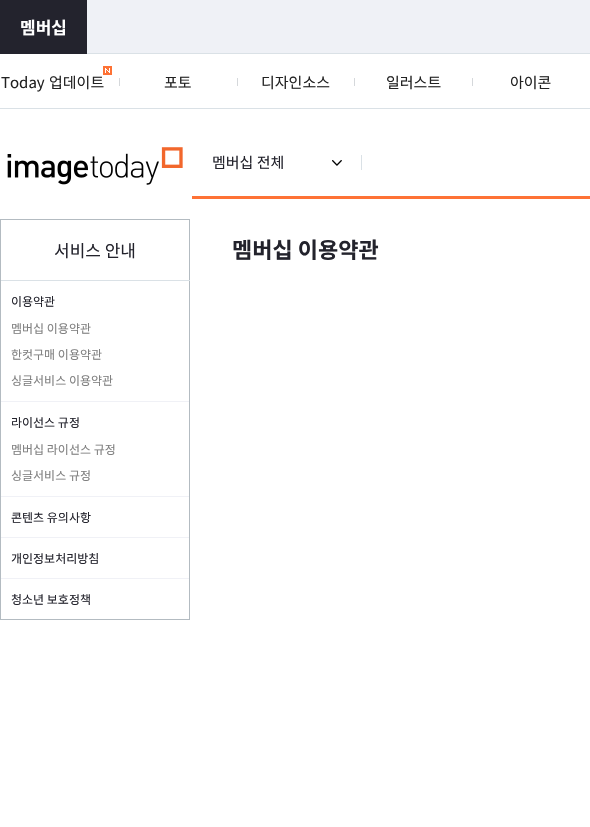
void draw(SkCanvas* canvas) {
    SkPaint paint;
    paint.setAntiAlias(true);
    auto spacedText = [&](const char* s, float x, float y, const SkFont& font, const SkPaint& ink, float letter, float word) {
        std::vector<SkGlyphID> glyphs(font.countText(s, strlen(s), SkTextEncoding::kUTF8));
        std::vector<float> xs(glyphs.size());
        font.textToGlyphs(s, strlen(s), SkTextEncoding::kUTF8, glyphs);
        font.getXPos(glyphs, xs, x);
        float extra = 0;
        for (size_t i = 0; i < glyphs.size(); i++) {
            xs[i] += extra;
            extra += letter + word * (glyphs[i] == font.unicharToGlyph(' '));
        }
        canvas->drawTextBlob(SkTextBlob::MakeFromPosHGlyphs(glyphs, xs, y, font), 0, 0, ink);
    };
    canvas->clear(0xFFFFFFFF);
    paint.setColor(0xFFEFF1F6);
    canvas->drawRect(SkRect::MakeXYWH(87, 0, 503, 53), paint);
    paint.setColor(0xFFDAE1E6);
    canvas->drawRect(SkRect::MakeXYWH(87, 53, 503, 1), paint);
    paint.setColor(0xFF23232D);
    canvas->drawRect(SkRect::MakeXYWH(0, 0, 87, 54), paint);
    SkFont font1(fontMgr->matchFamilyStyle("Noto Sans KR", SkFontStyle::Bold()), 17);
    font1.setSubpixel(true);
    paint.setColor(0xFFFFFFFF);
    canvas->drawString("멤버십", 20, 34, font1, paint);
    paint.setColor(0xFFDAE1E6);
    canvas->drawRect(SkRect::MakeXYWH(0, 108, 590, 1), paint);
    canvas->drawImageRect(SkImages::DeferredFromEncodedData(SkData::MakeFromFileName("img1.png")), SkRect::MakeXYWH(103, 66, 9, 9), SkSamplingOptions());
    SkFont font2(fontMgr->matchFamilyStyle("Noto Sans KR", SkFontStyle::Normal()), 15);
    font2.setSubpixel(true);
    paint.setColor(0xFF222222);
    spacedText("Today 업데이트", 1, 88, font2, paint, 0, 1);
    paint.setColor(0xFFD5D8DB);
    canvas->drawRect(SkRect::MakeXYWH(119, 78, 1, 8), paint);
    paint.setColor(0xFF222222);
    canvas->drawString("포토", 164, 88, font2, paint);
    paint.setColor(0xFFD5D8DB);
    canvas->drawRect(SkRect::MakeXYWH(237, 78, 1, 8), paint);
    paint.setColor(0xFF222222);
    canvas->drawString("디자인소스", 261, 88, font2, paint);
    paint.setColor(0xFFD5D8DB);
    canvas->drawRect(SkRect::MakeXYWH(354, 78, 1, 8), paint);
    paint.setColor(0xFF222222);
    canvas->drawString("일러스트", 386, 88, font2, paint);
    paint.setColor(0xFFD5D8DB);
    canvas->drawRect(SkRect::MakeXYWH(472, 78, 1, 8), paint);
    paint.setColor(0xFF222222);
    canvas->drawString("아이콘", 510, 88, font2, paint);
    canvas->drawImageRect(SkImages::DeferredFromEncodedData(SkData::MakeFromFileName("img2.png")), SkRect::MakeXYWH(7, 147, 176, 38), SkSamplingOptions());
    paint.setColor(0xFFFE7235);
    canvas->drawRect(SkRect::MakeXYWH(192, 196, 398, 3), paint);
    canvas->drawImageRect(SkImages::DeferredFromEncodedData(SkData::MakeFromFileName("img3.png")), SkRect::MakeXYWH(332, 160, 10, 6), SkSamplingOptions());
    paint.setColor(0xFF23232C);
    canvas->drawString("멤버십 전체", 212, 168, font2, paint);
    paint.setColor(0xFFDAE1E6);
    canvas->drawRect(SkRect::MakeXYWH(361, 155, 1, 15), paint);
    paint.setColor(0xFFB3BBC1);
    canvas->drawRect(SkRect::MakeXYWH(0, 219, 190, 1), paint);
    canvas->drawRect(SkRect::MakeXYWH(189, 219, 1, 401), paint);
    paint.setColor(0xFFDAE1E6);
    canvas->drawRect(SkRect::MakeXYWH(0, 280, 190, 1), paint);
    paint.setColor(0xFFB3BBC1);
    canvas->drawRect(SkRect::MakeXYWH(0, 219, 1, 62), paint);
    SkFont font3(fontMgr->matchFamilyStyle("Noto Sans KR", SkFontStyle::Normal()), 17);
    font3.setSubpixel(true);
    paint.setColor(0xFF23232C);
    canvas->drawString("서비스 안내", 54, 257, font3, paint);
    paint.setColor(0xFFB3BBC1);
    canvas->drawRect(SkRect::MakeXYWH(0, 619, 190, 1), paint);
    canvas->drawRect(SkRect::MakeXYWH(0, 281, 1, 339), paint);
    SkFont font4(fontMgr->matchFamilyStyle("Noto Sans KR", SkFontStyle::Normal()), 12);
    font4.setSubpixel(true);
    paint.setColor(0xFF23232C);
    canvas->drawString("이용약관", 11, 306, font4, paint);
    paint.setColor(0xFF808080);
    canvas->drawString("멤버십 이용약관", 11, 333, font4, paint);
    canvas->drawString("한컷구매 이용약관", 11, 359, font4, paint);
    canvas->drawString("싱글서비스 이용약관", 11, 385, font4, paint);
    paint.setColor(0xFFF0F1F6);
    canvas->drawRect(SkRect::MakeXYWH(1, 401, 188, 1), paint);
    paint.setColor(0xFF23232C);
    canvas->drawString("라이선스 규정", 11, 427, font4, paint);
    paint.setColor(0xFF808080);
    canvas->drawString("멤버십 라이선스 규정", 11, 454, font4, paint);
    canvas->drawString("싱글서비스 규정", 11, 480, font4, paint);
    paint.setColor(0xFFF0F1F6);
    canvas->drawRect(SkRect::MakeXYWH(1, 496, 188, 1), paint);
    paint.setColor(0xFF23232C);
    canvas->drawString("콘텐츠 유의사항", 11, 522, font4, paint);
    paint.setColor(0xFFF0F1F6);
    canvas->drawRect(SkRect::MakeXYWH(1, 537, 188, 1), paint);
    paint.setColor(0xFF23232C);
    canvas->drawString("개인정보처리방침", 11, 563, font4, paint);
    paint.setColor(0xFFF0F1F6);
    canvas->drawRect(SkRect::MakeXYWH(1, 578, 188, 1), paint);
    paint.setColor(0xFF23232C);
    canvas->drawString("청소년 보호정책", 11, 604, font4, paint);
    SkFont font5(fontMgr->matchFamilyStyle("Noto Sans KR", SkFontStyle::Bold()), 22);
    font5.setSubpixel(true);
    canvas->drawString("멤버십 이용약관", 232, 258, font5, paint);
}
